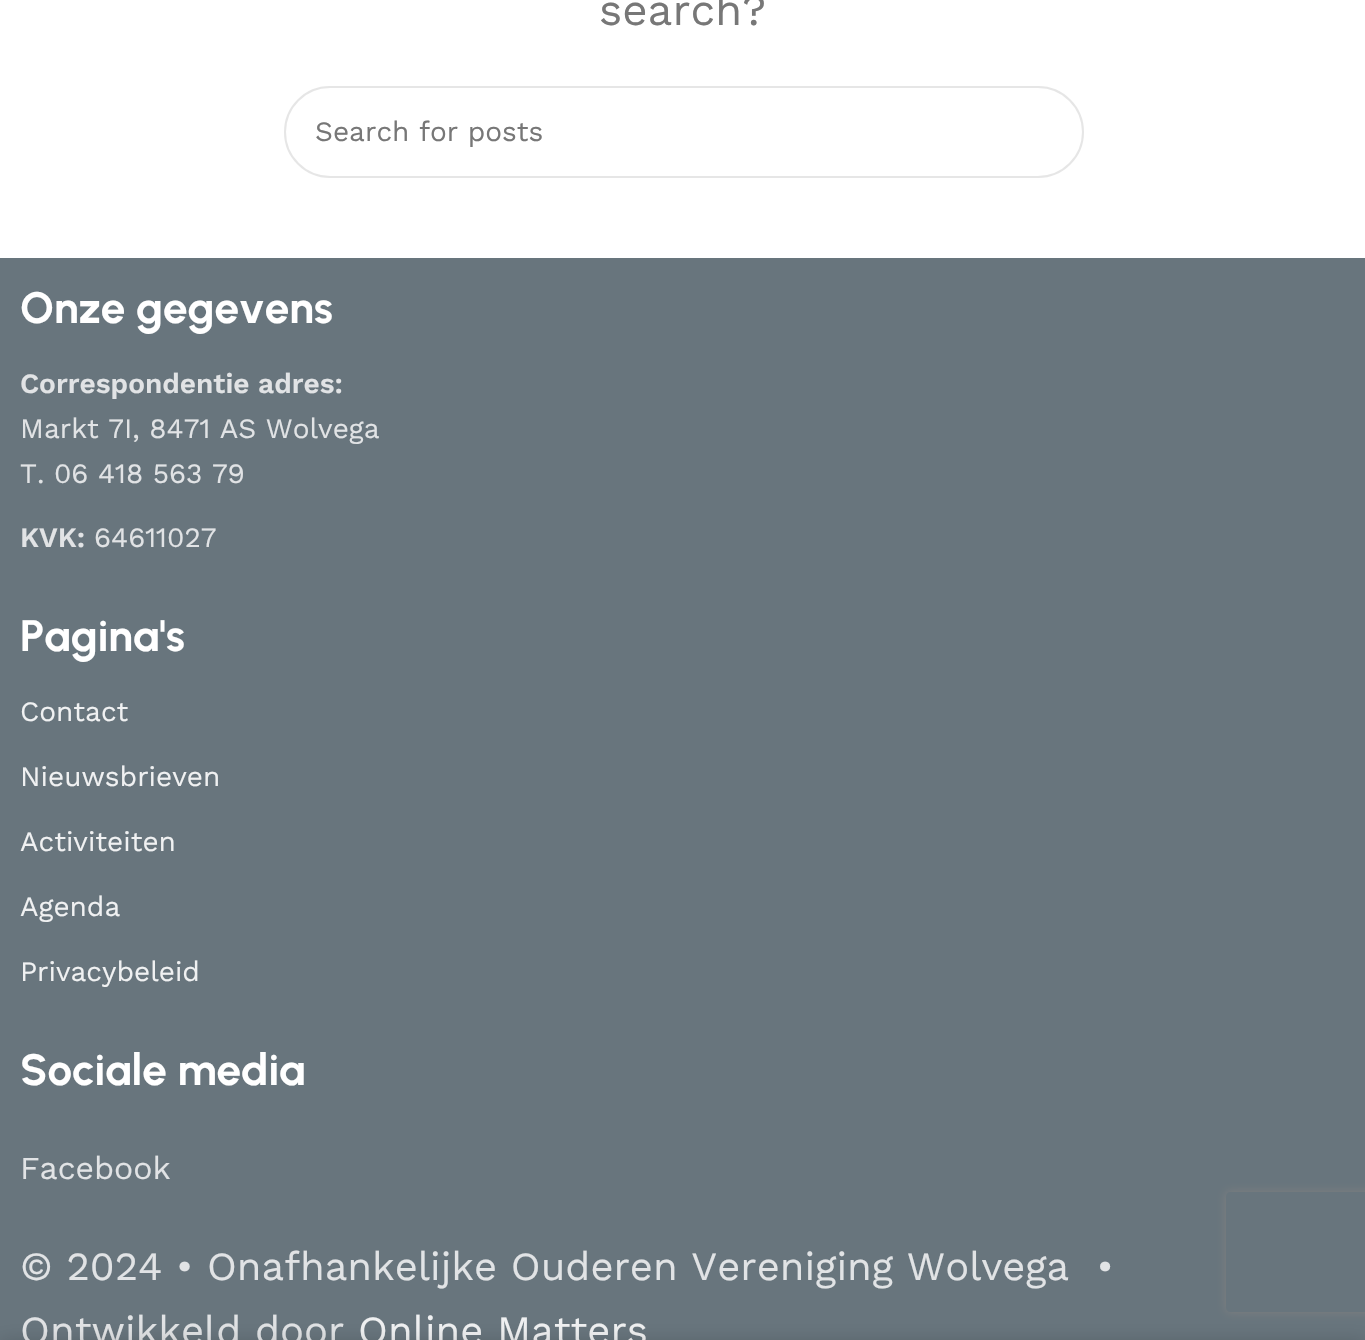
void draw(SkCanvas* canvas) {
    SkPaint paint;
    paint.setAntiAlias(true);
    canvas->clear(0xFFFFFFFF);
    SkFont font1(fontMgr->matchFamilyStyle("Work Sans", SkFontStyle::Normal()), 44);
    font1.setSubpixel(true);
    paint.setColor(0xFF777777);
    canvas->drawString("search?", 599, 25, font1, paint);
    paint.setStyle(SkPaint::kStroke_Style);
    paint.setStrokeWidth(2);
    paint.setColor(0xFFE6E6E6);
    canvas->drawRoundRect(SkRect::MakeXYWH(285, 87, 798, 90), 45, 45, paint);
    SkFont font2(fontMgr->matchFamilyStyle("Work Sans", SkFontStyle::Normal()), 28);
    font2.setSubpixel(true);
    paint.setStyle(SkPaint::kFill_Style);
    paint.setColor(0xFF777777);
    canvas->drawString("Search for posts", 315, 141, font2, paint);
    paint.setColor(0xFF68757D);
    canvas->drawRect(SkRect::MakeXYWH(0, 258, 1365, 1082), paint);
    SkFont font3(fontMgr->matchFamilyStyle("Urbanist", SkFontStyle::Bold()), 44);
    font3.setSubpixel(true);
    paint.setColor(0xFFFFFFFF);
    canvas->drawString("Onze gegevens", 20, 323, font3, paint);
    SkFont font4(fontMgr->matchFamilyStyle("Work Sans", SkFontStyle(600, SkFontStyle::kNormal_Width, SkFontStyle::kUpright_Slant)), 28);
    font4.setSubpixel(true);
    paint.setColor(0xFFE1E3E5);
    canvas->drawString("Correspondentie adres:", 20, 393, font4, paint);
    canvas->drawString("Markt 7I, 8471 AS Wolvega", 20, 438, font2, paint);
    canvas->drawString("T. 06 418 563 79", 20, 483, font2, paint);
    canvas->drawString("KVK:", 20, 547, font4, paint);
    canvas->drawString("64611027", 94, 547, font2, paint);
    paint.setColor(0xFFFFFFFF);
    canvas->drawString("Pagina's", 20, 651, font3, paint);
    paint.setColor(0xFFF0F1F2);
    canvas->drawString("Contact", 20, 721, font2, paint);
    canvas->drawString("Nieuwsbrieven", 20, 786, font2, paint);
    canvas->drawString("Activiteiten", 20, 851, font2, paint);
    canvas->drawString("Agenda", 20, 916, font2, paint);
    canvas->drawString("Privacybeleid", 20, 981, font2, paint);
    paint.setColor(0xFFFFFFFF);
    canvas->drawString("Sociale media", 20, 1085, font3, paint);
    SkFont font5(fontMgr->matchFamilyStyle("Work Sans", SkFontStyle::Normal()), 32);
    font5.setSubpixel(true);
    paint.setColor(0xFFE1E3E5);
    canvas->drawString("Facebook", 20, 1179, font5, paint);
    SkFont font6(fontMgr->matchFamilyStyle("Work Sans", SkFontStyle::Normal()), 40);
    font6.setSubpixel(true);
    canvas->drawString("© 2024 • Onafhankelijke Ouderen Vereniging Wolvega  •", 20, 1280, font6, paint);
    canvas->drawString("Ontwikkeld door", 20, 1344, font6, paint);
    paint.setColor(0xFFF0F1F2);
    canvas->drawString("Online Matters", 358, 1344, font6, paint);
    canvas->save();
    canvas->clipPath(SkPathBuilder(SkPathFillType::kEvenOdd).moveTo(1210, 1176).lineTo(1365, 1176).lineTo(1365, 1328).lineTo(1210, 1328).close().moveTo(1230, 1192).lineTo(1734, 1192).cubicTo(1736, 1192, 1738, 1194, 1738, 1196).lineTo(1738, 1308).cubicTo(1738, 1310, 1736, 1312, 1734, 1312).lineTo(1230, 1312).cubicTo(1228, 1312, 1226, 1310, 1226, 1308).lineTo(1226, 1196).cubicTo(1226, 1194, 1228, 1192, 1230, 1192).close().detach(), true);
    paint.setColor(0xFF808080);
    paint.setMaskFilter(SkMaskFilter::MakeBlur(kNormal_SkBlurStyle, 5));
    canvas->drawRoundRect(SkRect::MakeXYWH(1226, 1192, 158, 120), 4, 4, paint);
    paint.setMaskFilter(nullptr);
    canvas->restore();
    paint.setColor(0x24000000);
    paint.setMaskFilter(SkMaskFilter::MakeBlur(kNormal_SkBlurStyle, 9));
    canvas->drawRect(SkRect::MakeXYWH(0, 1340, 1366, 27), paint);
    paint.setMaskFilter(nullptr);
}
